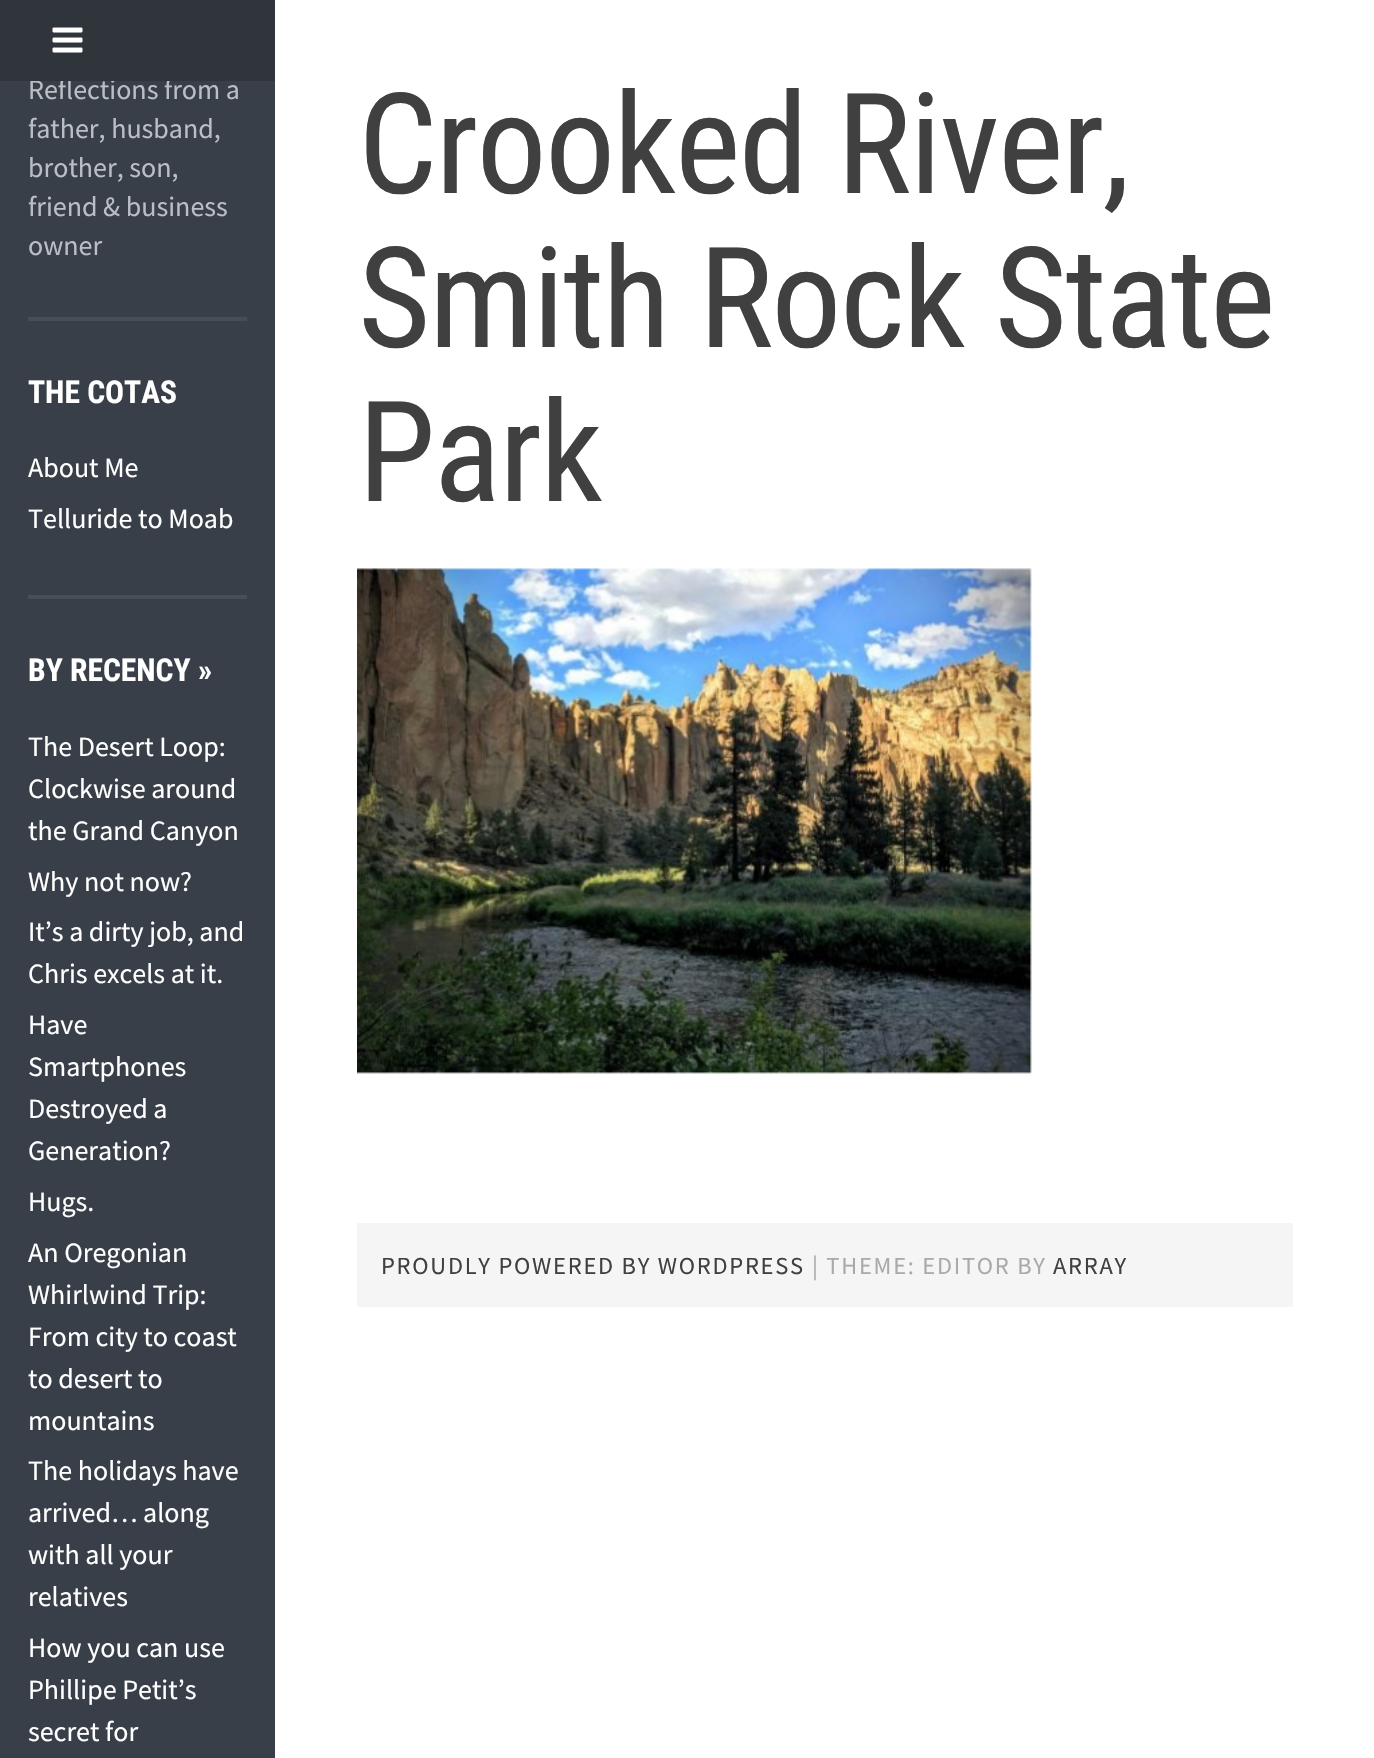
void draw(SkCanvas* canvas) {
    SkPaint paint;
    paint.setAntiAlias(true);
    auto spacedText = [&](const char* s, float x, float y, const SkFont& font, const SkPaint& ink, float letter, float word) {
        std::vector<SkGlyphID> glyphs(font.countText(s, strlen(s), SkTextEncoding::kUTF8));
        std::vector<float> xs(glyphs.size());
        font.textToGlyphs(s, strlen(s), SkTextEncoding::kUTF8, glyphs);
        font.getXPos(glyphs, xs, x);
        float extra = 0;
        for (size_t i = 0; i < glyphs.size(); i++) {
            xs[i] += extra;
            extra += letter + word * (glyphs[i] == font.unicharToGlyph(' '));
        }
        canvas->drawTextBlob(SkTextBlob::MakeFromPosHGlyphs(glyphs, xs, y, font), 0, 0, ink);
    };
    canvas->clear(0xFFFFFFFF);
    paint.setColor(0xFF383F49);
    canvas->drawRect(SkRect::MakeXYWH(0, 81, 275, 1677), paint);
    SkFont font1(fontMgr->matchFamilyStyle("Source Sans Pro", SkFontStyle::Normal()), 28);
    font1.setSubpixel(true);
    paint.setColor(0xFFBABFC5);
    canvas->drawString("Reflections from a", 28, 99, font1, paint);
    paint.setColor(0xFF30353C);
    canvas->drawRect(SkRect::MakeXYWH(0, 0, 275, 81), paint);
    canvas->drawImageRect(SkImages::DeferredFromEncodedData(SkData::MakeFromFileName("img1.png")), SkRect::MakeXYWH(52, 27, 31, 26), SkSamplingOptions());
    paint.setColor(0xFF474E57);
    canvas->drawRect(SkRect::MakeXYWH(28, 317, 219, 4), paint);
    paint.setColor(0xFFBABFC5);
    canvas->drawString("father, husband,", 28, 138, font1, paint);
    canvas->drawString("brother, son,", 28, 177, font1, paint);
    canvas->drawString("friend & business", 28, 216, font1, paint);
    canvas->drawString("owner", 28, 255, font1, paint);
    paint.setColor(0xFF474E57);
    canvas->drawRect(SkRect::MakeXYWH(28, 595, 219, 4), paint);
    SkFont font2(fontMgr->matchFamilyStyle("Roboto Condensed", SkFontStyle::Bold()), 31.5f);
    font2.setSubpixel(true);
    paint.setColor(0xFFFFFFFF);
    canvas->drawString("THE COTAS", 28, 403, font2, paint);
    canvas->drawString("About Me", 28, 477, font1, paint);
    canvas->drawString("Telluride to Moab", 28, 528, font1, paint);
    canvas->drawString("BY RECENCY »", 28, 681, font2, paint);
    canvas->drawString("The Desert Loop:", 28, 756, font1, paint);
    canvas->drawString("Clockwise around", 28, 798, font1, paint);
    canvas->drawString("the Grand Canyon", 28, 840, font1, paint);
    canvas->drawString("Why not now?", 28, 891, font1, paint);
    canvas->drawString("It’s a dirty job, and", 28, 941, font1, paint);
    canvas->drawString("Chris excels at it.", 28, 983, font1, paint);
    canvas->drawString("Have", 28, 1034, font1, paint);
    canvas->drawString("Smartphones", 28, 1076, font1, paint);
    canvas->drawString("Destroyed a", 28, 1118, font1, paint);
    canvas->drawString("Generation?", 28, 1160, font1, paint);
    canvas->drawString("Hugs.", 28, 1211, font1, paint);
    canvas->drawString("An Oregonian", 28, 1262, font1, paint);
    canvas->drawString("Whirlwind Trip:", 28, 1304, font1, paint);
    canvas->drawString("From city to coast", 28, 1346, font1, paint);
    canvas->drawString("to desert to", 28, 1388, font1, paint);
    canvas->drawString("mountains", 28, 1430, font1, paint);
    canvas->drawString("The holidays have", 28, 1480, font1, paint);
    canvas->drawString("arrived… along", 28, 1522, font1, paint);
    canvas->drawString("with all your", 28, 1564, font1, paint);
    canvas->drawString("relatives", 28, 1606, font1, paint);
    canvas->drawString("How you can use", 28, 1657, font1, paint);
    canvas->drawString("Phillipe Petit’s", 28, 1699, font1, paint);
    canvas->drawString("secret for", 28, 1741, font1, paint);
    SkFont font3(fontMgr->matchFamilyStyle("Roboto Condensed", SkFontStyle::Normal()), 140);
    font3.setSubpixel(true);
    paint.setColor(0xFF404040);
    spacedText("Crooked River,", 358, 193, font3, paint, -1.75f, 0);
    spacedText("Smith Rock State", 358, 347, font3, paint, -1.75f, 0);
    spacedText("Park", 358, 501, font3, paint, -1.75f, 0);
    canvas->drawImageRect(SkImages::DeferredFromEncodedData(SkData::MakeFromFileName("img2.png")), SkRect::MakeXYWH(357, 568, 675, 506), SkSamplingOptions());
    paint.setColor(0xFFF5F5F5);
    canvas->drawRect(SkRect::MakeXYWH(357, 1223, 936, 84), paint);
    SkFont font4(fontMgr->matchFamilyStyle("Source Sans Pro", SkFontStyle::Normal()), 24.5f);
    font4.setSubpixel(true);
    paint.setColor(0xFF404040);
    spacedText("PROUDLY POWERED BY WORDPRESS", 381, 1274, font4, paint, 1.75f, 0);
    paint.setColor(0xFFAAAAAA);
    spacedText("| THEME: EDITOR BY", 812, 1274, font4, paint, 1.75f, 0);
    paint.setColor(0xFF404040);
    spacedText("ARRAY", 1053, 1274, font4, paint, 1.75f, 0);
}
